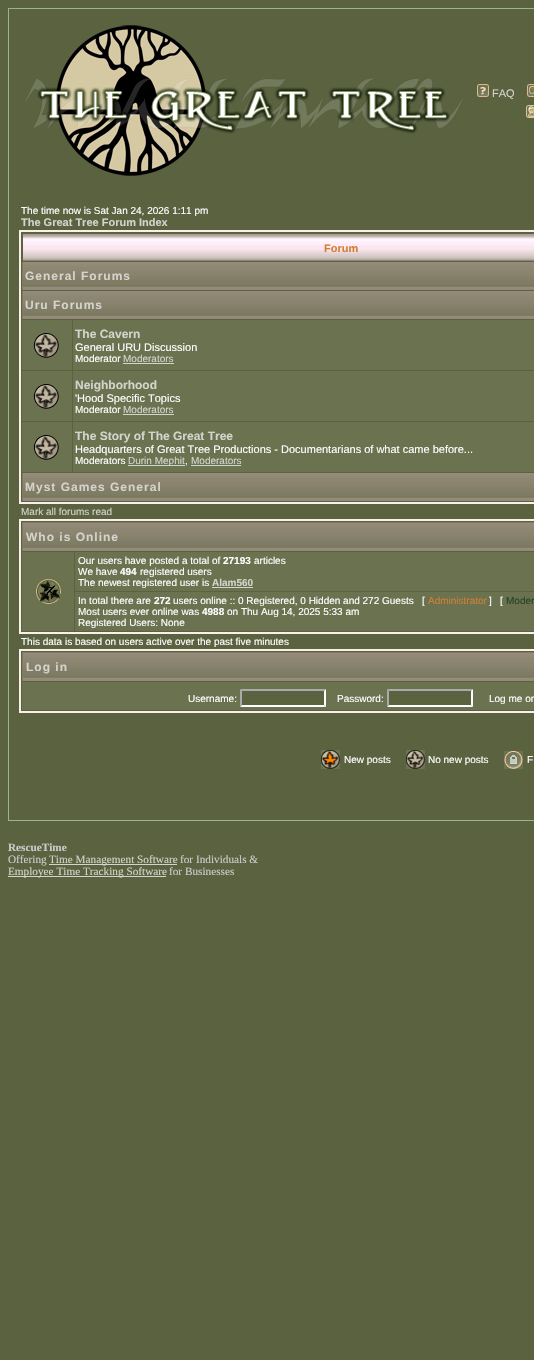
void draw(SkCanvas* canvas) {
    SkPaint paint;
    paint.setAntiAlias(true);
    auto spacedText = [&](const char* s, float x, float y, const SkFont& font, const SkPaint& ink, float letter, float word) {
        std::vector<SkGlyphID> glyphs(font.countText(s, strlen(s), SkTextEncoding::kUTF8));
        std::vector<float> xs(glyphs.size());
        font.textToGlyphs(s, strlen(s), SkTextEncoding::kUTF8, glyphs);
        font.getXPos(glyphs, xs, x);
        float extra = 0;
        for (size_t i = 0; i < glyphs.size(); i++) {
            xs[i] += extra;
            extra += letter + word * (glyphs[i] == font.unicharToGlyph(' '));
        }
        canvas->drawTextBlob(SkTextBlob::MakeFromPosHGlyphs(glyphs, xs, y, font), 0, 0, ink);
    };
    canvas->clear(0xFF5B6240);
    paint.setStyle(SkPaint::kStroke_Style);
    paint.setStrokeWidth(1);
    paint.setColor(0xFF9BB198);
    canvas->drawRect(SkRect::MakeXYWH(8.5f, 8.5f, 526, 812), paint);
    canvas->drawImageRect(SkImages::DeferredFromEncodedData(SkData::MakeFromFileName("img1.png")), SkRect::MakeXYWH(25, 25, 438, 151), SkSamplingOptions());
    canvas->drawImageRect(SkImages::DeferredFromEncodedData(SkData::MakeFromFileName("img2.png")), SkRect::MakeXYWH(477, 84, 12, 13), SkSamplingOptions());
    SkFont font1(fontMgr->matchFamilyStyle("Liberation Sans", SkFontStyle::Normal()), 11);
    font1.setSubpixel(true);
    paint.setStyle(SkPaint::kFill_Style);
    paint.setColor(0xFFD4D4CD);
    canvas->drawString("FAQ", 492, 97, font1, paint);
    canvas->drawImageRect(SkImages::DeferredFromEncodedData(SkData::MakeFromFileName("img3.png")), SkRect::MakeXYWH(527, 84, 7, 13), SkSamplingOptions());
    canvas->drawImageRect(SkImages::DeferredFromEncodedData(SkData::MakeFromFileName("img4.png")), SkRect::MakeXYWH(526, 105, 8, 13), SkSamplingOptions());
    SkFont font2(fontMgr->matchFamilyStyle("Liberation Sans", SkFontStyle::Normal()), 10);
    font2.setSubpixel(true);
    paint.setColor(0xFFFFFFFF);
    canvas->drawString("The time now is Sat Jan 24, 2026 1:11 pm", 21, 214, font2, paint);
    SkFont font3(fontMgr->matchFamilyStyle("Liberation Sans", SkFontStyle::Bold()), 11);
    font3.setSubpixel(true);
    paint.setColor(0xFFD4D4CD);
    canvas->drawString("The Great Tree Forum Index", 21, 226, font3, paint);
    paint.setStyle(SkPaint::kStroke_Style);
    paint.setStrokeWidth(2);
    paint.setColor(0xFFFCEFE9);
    canvas->drawRect(SkRect::MakeXYWH(20, 231, 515, 272), paint);
    canvas->drawImageRect(SkImages::DeferredFromEncodedData(SkData::MakeFromFileName("img5.png")), SkRect::MakeXYWH(23, 234, 511, 27), SkSamplingOptions());
    paint.setStyle(SkPaint::kFill_Style);
    paint.setColor(0xFFD37F33);
    canvas->drawString("Forum", 324, 252, font3, paint);
    canvas->drawImageRect(SkImages::DeferredFromEncodedData(SkData::MakeFromFileName("img6.png")), SkRect::MakeXYWH(23, 262, 511, 28), SkSamplingOptions());
    paint.setColor(0xFF7C7A61);
    canvas->drawRect(SkRect::MakeXYWH(22, 262, 1, 28), paint);
    SkFont font4(fontMgr->matchFamilyStyle("Liberation Sans", SkFontStyle::Bold()), 12);
    font4.setSubpixel(true);
    paint.setColor(0xFFD4D4CD);
    spacedText("General Forums", 25, 280, font4, paint, 1, 0);
    canvas->drawImageRect(SkImages::DeferredFromEncodedData(SkData::MakeFromFileName("img6.png")), SkRect::MakeXYWH(23, 291, 511, 28), SkSamplingOptions());
    paint.setColor(0xFF7C7A61);
    canvas->drawRect(SkRect::MakeXYWH(22, 291, 1, 28), paint);
    paint.setColor(0xFFD4D4CD);
    spacedText("Uru Forums", 25, 309, font4, paint, 1, 0);
    paint.setColor(0xFF6B7250);
    canvas->drawRect(SkRect::MakeXYWH(22, 320, 50, 50), paint);
    canvas->drawImageRect(SkImages::DeferredFromEncodedData(SkData::MakeFromFileName("img7.png")), SkRect::MakeXYWH(33, 333, 26, 25), SkSamplingOptions());
    canvas->drawRect(SkRect::MakeXYWH(73, 320, 461, 50), paint);
    paint.setColor(0xFFD4D4CD);
    canvas->drawString("The Cavern", 75, 338, font4, paint);
    paint.setColor(0xFFFFFFFF);
    canvas->drawString("General URU Discussion", 75, 351, font1, paint);
    canvas->drawString("Moderator", 75, 362, font2, paint);
    paint.setColor(0xFFD4D4CD);
    canvas->drawString("Moderators", 123, 362, font2, paint);
    canvas->drawRect(SkRect::MakeXYWH(123, 363, 51, 1), paint);
    paint.setColor(0xFF6B7250);
    canvas->drawRect(SkRect::MakeXYWH(22, 371, 50, 50), paint);
    canvas->drawImageRect(SkImages::DeferredFromEncodedData(SkData::MakeFromFileName("img7.png")), SkRect::MakeXYWH(33, 384, 26, 25), SkSamplingOptions());
    canvas->drawRect(SkRect::MakeXYWH(73, 371, 461, 50), paint);
    paint.setColor(0xFFD4D4CD);
    canvas->drawString("Neighborhood", 75, 389, font4, paint);
    paint.setColor(0xFFFFFFFF);
    canvas->drawString("'Hood Specific Topics", 75, 402, font1, paint);
    canvas->drawString("Moderator", 75, 413, font2, paint);
    paint.setColor(0xFFD4D4CD);
    canvas->drawString("Moderators", 123, 413, font2, paint);
    canvas->drawRect(SkRect::MakeXYWH(123, 414, 51, 1), paint);
    paint.setColor(0xFF6B7250);
    canvas->drawRect(SkRect::MakeXYWH(22, 422, 50, 50), paint);
    canvas->drawImageRect(SkImages::DeferredFromEncodedData(SkData::MakeFromFileName("img7.png")), SkRect::MakeXYWH(33, 435, 26, 25), SkSamplingOptions());
    canvas->drawRect(SkRect::MakeXYWH(73, 422, 461, 50), paint);
    paint.setColor(0xFFD4D4CD);
    canvas->drawString("The Story of The Great Tree", 75, 440, font4, paint);
    paint.setColor(0xFFFFFFFF);
    canvas->drawString("Headquarters of Great Tree Productions - Documentarians of what came before...", 75, 453, font1, paint);
    canvas->drawString("Moderators", 75, 464, font2, paint);
    paint.setColor(0xFFD4D4CD);
    canvas->drawRect(SkRect::MakeXYWH(128, 465, 57, 1), paint);
    canvas->drawString("Durin Mephit", 128, 464, font2, paint);
    paint.setColor(0xFFFFFFFF);
    canvas->drawString(",", 185, 464, font2, paint);
    paint.setColor(0xFFD4D4CD);
    canvas->drawRect(SkRect::MakeXYWH(191, 465, 50, 1), paint);
    canvas->drawString("Moderators", 191, 464, font2, paint);
    canvas->drawImageRect(SkImages::DeferredFromEncodedData(SkData::MakeFromFileName("img6.png")), SkRect::MakeXYWH(23, 473, 511, 28), SkSamplingOptions());
    paint.setColor(0xFF7C7A61);
    canvas->drawRect(SkRect::MakeXYWH(22, 473, 1, 28), paint);
    paint.setColor(0xFFD4D4CD);
    spacedText("Myst Games General", 25, 491, font4, paint, 1, 0);
    canvas->drawString("Mark all forums read", 21, 515, font2, paint);
    paint.setStyle(SkPaint::kStroke_Style);
    paint.setColor(0xFFFCEFE9);
    canvas->drawRect(SkRect::MakeXYWH(20, 520, 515, 113), paint);
    canvas->drawImageRect(SkImages::DeferredFromEncodedData(SkData::MakeFromFileName("img6.png")), SkRect::MakeXYWH(23, 523, 511, 28), SkSamplingOptions());
    paint.setStyle(SkPaint::kFill_Style);
    paint.setColor(0xFF7C7A61);
    canvas->drawRect(SkRect::MakeXYWH(22, 522, 512, 1), paint);
    canvas->drawRect(SkRect::MakeXYWH(22, 522, 1, 29), paint);
    paint.setColor(0xFFD4D4CD);
    spacedText("Who is Online", 26, 541, font4, paint, 1, 0);
    paint.setColor(0xFF6B7250);
    canvas->drawRect(SkRect::MakeXYWH(22, 552, 52, 79), paint);
    canvas->drawImageRect(SkImages::DeferredFromEncodedData(SkData::MakeFromFileName("img8.png")), SkRect::MakeXYWH(36, 579, 25, 25), SkSamplingOptions());
    canvas->drawRect(SkRect::MakeXYWH(75, 552, 459, 39), paint);
    paint.setColor(0xFFFFFFFF);
    canvas->drawString("Our users have posted a total of", 78, 564, font2, paint);
    SkFont font5(fontMgr->matchFamilyStyle("Liberation Sans", SkFontStyle::Bold()), 10);
    font5.setSubpixel(true);
    canvas->drawString("27193", 223, 564, font5, paint);
    canvas->drawString("articles", 254, 564, font2, paint);
    canvas->drawString("We have", 78, 575, font2, paint);
    canvas->drawString("494", 120, 575, font5, paint);
    canvas->drawString("registered users", 140, 575, font2, paint);
    canvas->drawString("The newest registered user is", 78, 586, font2, paint);
    paint.setColor(0xFFD4D4CD);
    canvas->drawString("Alam560", 212, 586, font5, paint);
    canvas->drawRect(SkRect::MakeXYWH(212, 587, 41, 1), paint);
    paint.setColor(0xFF6B7250);
    canvas->drawRect(SkRect::MakeXYWH(75, 592, 459, 39), paint);
    paint.setColor(0xFFFFFFFF);
    canvas->drawString("In total there are", 78, 604, font2, paint);
    canvas->drawString("272", 154, 604, font5, paint);
    canvas->drawString("users online :: 0 Registered, 0 Hidden and 272 Guests   [", 173, 604, font2, paint);
    paint.setColor(0xFFD37F33);
    canvas->drawString("Administrator", 428, 604, font2, paint);
    paint.setColor(0xFFFFFFFF);
    canvas->drawString("]   [", 489, 604, font2, paint);
    paint.setColor(0xFF234223);
    canvas->drawString("Moder", 506, 604, font2, paint);
    paint.setColor(0xFFFFFFFF);
    canvas->drawString("Most users ever online was", 78, 615, font2, paint);
    canvas->drawString("4988", 202, 615, font5, paint);
    canvas->drawString("on Thu Aug 14, 2025 5:33 am", 227, 615, font2, paint);
    canvas->drawString("Registered Users: None", 78, 626, font2, paint);
    canvas->drawString("This data is based on users active over the past five minutes", 21, 645, font2, paint);
    paint.setStyle(SkPaint::kStroke_Style);
    paint.setColor(0xFFFCEFE9);
    canvas->drawRect(SkRect::MakeXYWH(20, 650, 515, 62), paint);
    canvas->drawImageRect(SkImages::DeferredFromEncodedData(SkData::MakeFromFileName("img6.png")), SkRect::MakeXYWH(23, 653, 511, 28), SkSamplingOptions());
    paint.setStyle(SkPaint::kFill_Style);
    paint.setColor(0xFF7C7A61);
    canvas->drawRect(SkRect::MakeXYWH(22, 652, 512, 1), paint);
    canvas->drawRect(SkRect::MakeXYWH(22, 652, 1, 29), paint);
    paint.setColor(0xFFD4D4CD);
    spacedText("Log in", 26, 671, font4, paint, 1, 0);
    paint.setColor(0xFF6B7250);
    canvas->drawRect(SkRect::MakeXYWH(22, 682, 512, 28), paint);
    paint.setColor(0xFFFFFFFF);
    canvas->drawString("Username:", 188, 702, font2, paint);
    paint.setColor(0xFF5B6240);
    canvas->drawRect(SkRect::MakeXYWH(240, 689, 86, 18), paint);
    paint.setColor(0xFFAAAAAA);
    canvas->drawPath(SkPathBuilder().moveTo(240, 689).lineTo(326, 689).lineTo(324, 691).lineTo(242, 691).close().detach(), paint);
    paint.setColor(0xFFFFFFFF);
    canvas->drawPath(SkPathBuilder().moveTo(326, 689).lineTo(326, 707).lineTo(324, 705).lineTo(324, 691).close().detach(), paint);
    canvas->drawPath(SkPathBuilder().moveTo(326, 707).lineTo(240, 707).lineTo(242, 705).lineTo(324, 705).close().detach(), paint);
    paint.setColor(0xFFAAAAAA);
    canvas->drawPath(SkPathBuilder().moveTo(240, 707).lineTo(240, 689).lineTo(242, 691).lineTo(242, 705).close().detach(), paint);
    paint.setColor(0xFFFFFFFF);
    canvas->drawString("Password:", 337, 702, font2, paint);
    paint.setColor(0xFF5B6240);
    canvas->drawRect(SkRect::MakeXYWH(387, 689, 86, 18), paint);
    paint.setColor(0xFFAAAAAA);
    canvas->drawPath(SkPathBuilder().moveTo(387, 689).lineTo(473, 689).lineTo(471, 691).lineTo(389, 691).close().detach(), paint);
    paint.setColor(0xFFFFFFFF);
    canvas->drawPath(SkPathBuilder().moveTo(473, 689).lineTo(473, 707).lineTo(471, 705).lineTo(471, 691).close().detach(), paint);
    canvas->drawPath(SkPathBuilder().moveTo(473, 707).lineTo(387, 707).lineTo(389, 705).lineTo(471, 705).close().detach(), paint);
    paint.setColor(0xFFAAAAAA);
    canvas->drawPath(SkPathBuilder().moveTo(387, 707).lineTo(387, 689).lineTo(389, 691).lineTo(389, 705).close().detach(), paint);
    paint.setColor(0xFFFFFFFF);
    canvas->drawString("Log me on", 489, 702, font2, paint);
    canvas->drawImageRect(SkImages::DeferredFromEncodedData(SkData::MakeFromFileName("img9.png")), SkRect::MakeXYWH(321, 750, 19, 19), SkSamplingOptions());
    canvas->drawString("New posts", 344, 763, font2, paint);
    canvas->drawImageRect(SkImages::DeferredFromEncodedData(SkData::MakeFromFileName("img10.png")), SkRect::MakeXYWH(406, 750, 19, 19), SkSamplingOptions());
    canvas->drawString("No new posts", 428, 763, font2, paint);
    canvas->drawImageRect(SkImages::DeferredFromEncodedData(SkData::MakeFromFileName("img11.png")), SkRect::MakeXYWH(504, 751, 19, 18), SkSamplingOptions());
    canvas->drawString("F", 527, 763, font2, paint);
    SkFont font6(fontMgr->matchFamilyStyle("Liberation Serif", SkFontStyle::Bold()), 11.25f);
    font6.setSubpixel(true);
    paint.setColor(0xFFCCCCCC);
    canvas->drawString("RescueTime", 8, 851, font6, paint);
    SkFont font7(fontMgr->matchFamilyStyle("Liberation Serif", SkFontStyle::Normal()), 11.25f);
    font7.setSubpixel(true);
    canvas->drawString("Offering", 8, 863, font7, paint);
    paint.setColor(0xFFD4D4CD);
    canvas->drawRect(SkRect::MakeXYWH(49, 864, 128, 1), paint);
    canvas->drawString("Time Management Software", 49, 863, font7, paint);
    paint.setColor(0xFFCCCCCC);
    canvas->drawString("for Individuals &", 180, 863, font7, paint);
    paint.setColor(0xFFD4D4CD);
    canvas->drawRect(SkRect::MakeXYWH(8, 876, 158, 1), paint);
    canvas->drawString("Employee Time Tracking Software", 8, 875, font7, paint);
    paint.setColor(0xFFCCCCCC);
    canvas->drawString("for Businesses", 169, 875, font7, paint);
}
